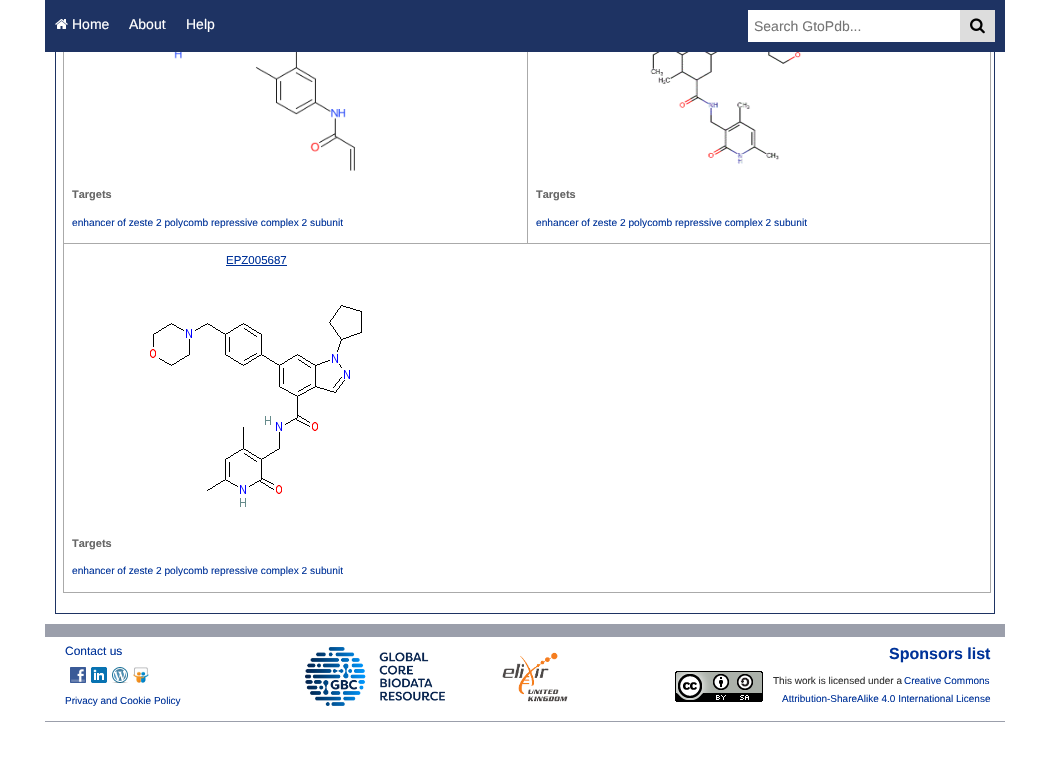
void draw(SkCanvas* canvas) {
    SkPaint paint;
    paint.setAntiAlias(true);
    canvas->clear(0xFFFFFFFF);
    paint.setStyle(SkPaint::kStroke_Style);
    paint.setStrokeWidth(1);
    paint.setColor(0xFF1E3363);
    canvas->drawRect(SkRect::MakeXYWH(55.5f, -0.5f, 939, 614), paint);
    paint.setStyle(SkPaint::kFill_Style);
    canvas->drawRect(SkRect::MakeXYWH(45, 0, 960, 52), paint);
    canvas->drawImageRect(SkImages::DeferredFromEncodedData(SkData::MakeFromFileName("img1.png")), SkRect::MakeXYWH(55, 19, 13, 10), SkSamplingOptions());
    SkFont font1(fontMgr->matchFamilyStyle("Liberation Sans", SkFontStyle::Normal()), 14);
    font1.setSubpixel(true);
    paint.setColor(0xFFFFFFFF);
    canvas->drawString("Home", 72, 29, font1, paint);
    canvas->drawString("About", 129, 29, font1, paint);
    canvas->drawString("Help", 186, 29, font1, paint);
    canvas->drawRect(SkRect::MakeXYWH(748, 10, 212, 32), paint);
    paint.setColor(0xFF757575);
    canvas->drawString("Search GtoPdb...", 754, 31, font1, paint);
    paint.setColor(0xFFDDDDDD);
    canvas->drawRect(SkRect::MakeXYWH(960, 10, 35, 32), paint);
    canvas->drawImageRect(SkImages::DeferredFromEncodedData(SkData::MakeFromFileName("img2.png")), SkRect::MakeXYWH(970, 18, 15, 16), SkSamplingOptions());
    canvas->drawImageRect(SkImages::DeferredFromEncodedData(SkData::MakeFromFileName("img3.png")), SkRect::MakeXYWH(139, 52, 236, 119), SkSamplingOptions());
    SkFont font2(fontMgr->matchFamilyStyle("Liberation Sans", SkFontStyle::Bold()), 11);
    font2.setSubpixel(true);
    paint.setColor(0xFF666666);
    canvas->drawString("Targets", 72, 198, font2, paint);
    SkFont font3(fontMgr->matchFamilyStyle("Liberation Sans", SkFontStyle::Normal()), 10.2f);
    font3.setSubpixel(true);
    paint.setColor(0xFF003399);
    canvas->drawString("enhancer of zeste 2 polycomb repressive complex 2 subunit", 72, 226, font3, paint);
    paint.setColor(0xFFAAAAAA);
    canvas->drawRect(SkRect::MakeXYWH(63, 243, 928, 1), paint);
    canvas->drawRect(SkRect::MakeXYWH(527, 52, 1, 192), paint);
    canvas->drawImageRect(SkImages::DeferredFromEncodedData(SkData::MakeFromFileName("img4.png")), SkRect::MakeXYWH(650, 52, 152, 112), SkSamplingOptions());
    paint.setColor(0xFF666666);
    canvas->drawString("Targets", 536, 198, font2, paint);
    paint.setColor(0xFF003399);
    canvas->drawString("enhancer of zeste 2 polycomb repressive complex 2 subunit", 536, 226, font3, paint);
    paint.setColor(0xFFAAAAAA);
    canvas->drawRect(SkRect::MakeXYWH(990, 52, 1, 541), paint);
    canvas->drawRect(SkRect::MakeXYWH(63, 592, 928, 1), paint);
    canvas->drawRect(SkRect::MakeXYWH(63, 52, 1, 541), paint);
    SkFont font4(fontMgr->matchFamilyStyle("Liberation Sans", SkFontStyle::Normal()), 11.5f);
    font4.setSubpixel(true);
    paint.setColor(0xFF003399);
    canvas->drawString("EPZ005687", 226, 264, font4, paint);
    canvas->drawRect(SkRect::MakeXYWH(226, 265, 61, 1), paint);
    canvas->drawImageRect(SkImages::DeferredFromEncodedData(SkData::MakeFromFileName("img5.png")), SkRect::MakeXYWH(150, 305, 212, 202), SkSamplingOptions());
    paint.setColor(0xFF666666);
    canvas->drawString("Targets", 72, 547, font2, paint);
    paint.setColor(0xFF003399);
    canvas->drawString("enhancer of zeste 2 polycomb repressive complex 2 subunit", 72, 574, font3, paint);
    paint.setColor(0xFF9B9FAB);
    canvas->drawRect(SkRect::MakeXYWH(45, 624, 960, 13), paint);
    canvas->drawRect(SkRect::MakeXYWH(45, 721, 960, 1), paint);
    SkFont font5(fontMgr->matchFamilyStyle("Liberation Sans", SkFontStyle::Normal()), 12);
    font5.setSubpixel(true);
    paint.setColor(0xFF003399);
    canvas->drawString("Contact us", 65, 655, font5, paint);
    canvas->drawImageRect(SkImages::DeferredFromEncodedData(SkData::MakeFromFileName("img6.png")), SkRect::MakeXYWH(70, 667, 16, 16), SkSamplingOptions());
    canvas->drawImageRect(SkImages::DeferredFromEncodedData(SkData::MakeFromFileName("img7.png")), SkRect::MakeXYWH(91, 667, 16, 16), SkSamplingOptions());
    canvas->drawImageRect(SkImages::DeferredFromEncodedData(SkData::MakeFromFileName("img8.png")), SkRect::MakeXYWH(112, 667, 16, 16), SkSamplingOptions());
    canvas->drawImageRect(SkImages::DeferredFromEncodedData(SkData::MakeFromFileName("img9.png")), SkRect::MakeXYWH(133, 667, 16, 16), SkSamplingOptions());
    SkFont font6(fontMgr->matchFamilyStyle("Liberation Sans", SkFontStyle::Normal()), 10);
    font6.setSubpixel(true);
    canvas->drawString("Privacy and Cookie Policy", 65, 704, font6, paint);
    canvas->drawImageRect(SkImages::DeferredFromEncodedData(SkData::MakeFromFileName("img10.png")), SkRect::MakeXYWH(305, 647, 140, 59), SkSamplingOptions());
    canvas->drawImageRect(SkImages::DeferredFromEncodedData(SkData::MakeFromFileName("img11.png")), SkRect::MakeXYWH(502, 652, 66, 50), SkSamplingOptions());
    SkFont font7(fontMgr->matchFamilyStyle("Liberation Sans", SkFontStyle::Bold()), 16);
    font7.setSubpixel(true);
    canvas->drawString("Sponsors list", 889, 659, font7, paint);
    canvas->drawImageRect(SkImages::DeferredFromEncodedData(SkData::MakeFromFileName("img12.png")), SkRect::MakeXYWH(675, 671, 88, 31), SkSamplingOptions());
    paint.setColor(0xFF333333);
    canvas->drawString("This work is licensed under a", 773, 684, font6, paint);
    paint.setColor(0xFF003399);
    canvas->drawString("Creative Commons", 904, 684, font6, paint);
    canvas->drawString("Attribution-ShareAlike 4.0 International License", 782, 702, font6, paint);
}
